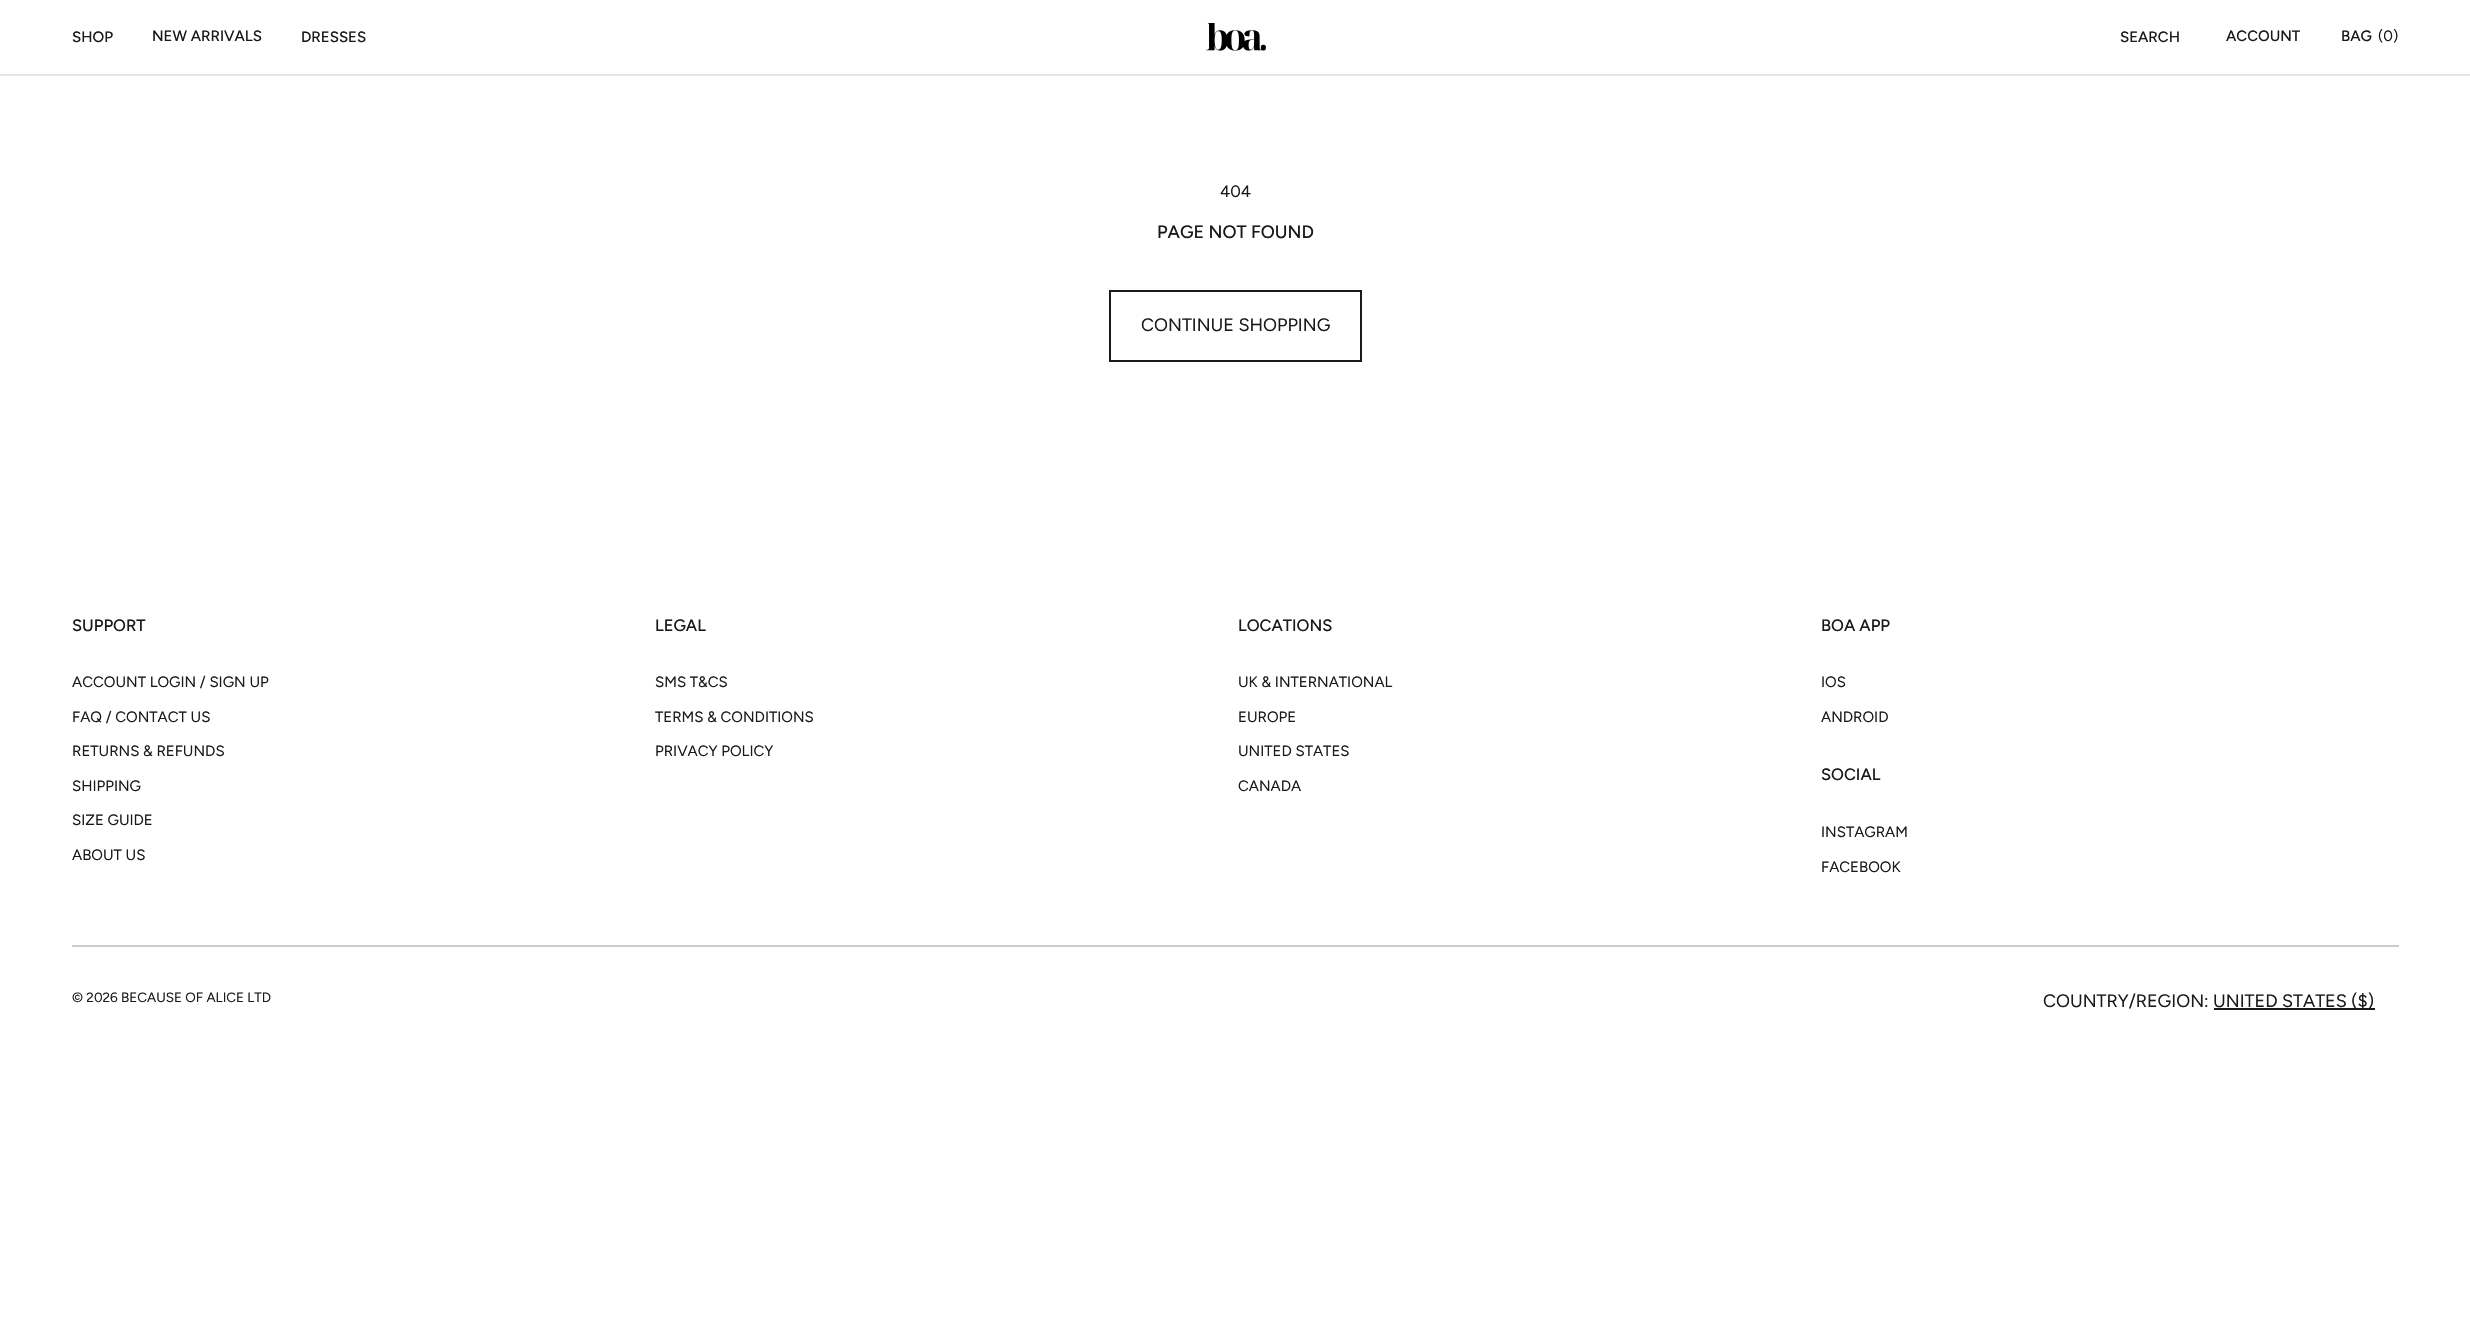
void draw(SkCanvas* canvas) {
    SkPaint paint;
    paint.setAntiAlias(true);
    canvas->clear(0xFFFFFFFF);
    paint.setColor(0xFFE6E6E6);
    canvas->drawRect(SkRect::MakeXYWH(0, 74, 2470, 2), paint);
    SkFont font1(fontMgr->matchFamilyStyle("Figtree", SkFontStyle(500, SkFontStyle::kNormal_Width, SkFontStyle::kUpright_Slant)), 15);
    font1.setSubpixel(true);
    paint.setColor(0xFF1A1A1A);
    canvas->drawString("SHOP", 72, 42, font1, paint);
    canvas->drawString("NEW ARRIVALS", 152, 41, font1, paint);
    canvas->drawString("DRESSES", 301, 42, font1, paint);
    canvas->drawImageRect(SkImages::DeferredFromEncodedData(SkData::MakeFromFileName("img1.png")), SkRect::MakeXYWH(1206, 23, 60, 28), SkSamplingOptions());
    canvas->drawString("SEARCH", 2120, 42, font1, paint);
    canvas->drawString("ACCOUNT", 2226, 41, font1, paint);
    canvas->drawString("BAG", 2341, 41, font1, paint);
    SkFont font2(fontMgr->matchFamilyStyle("Figtree", SkFontStyle::Normal()), 15);
    font2.setSubpixel(true);
    canvas->drawString("(0)", 2378, 41, font2, paint);
    SkFont font3(fontMgr->matchFamilyStyle("Figtree", SkFontStyle::Normal()), 16.5f);
    font3.setSubpixel(true);
    canvas->drawString("404", 1220, 197, font3, paint);
    SkFont font4(fontMgr->matchFamilyStyle("Figtree", SkFontStyle(500, SkFontStyle::kNormal_Width, SkFontStyle::kUpright_Slant)), 18);
    font4.setSubpixel(true);
    canvas->drawString("PAGE NOT FOUND", 1157, 238, font4, paint);
    paint.setStyle(SkPaint::kStroke_Style);
    paint.setStrokeWidth(2);
    canvas->drawRect(SkRect::MakeXYWH(1110, 291, 251, 70), paint);
    SkFont font5(fontMgr->matchFamilyStyle("Figtree", SkFontStyle::Normal()), 18);
    font5.setSubpixel(true);
    paint.setStyle(SkPaint::kFill_Style);
    canvas->drawString("CONTINUE SHOPPING", 1141, 331, font5, paint);
    SkFont font6(fontMgr->matchFamilyStyle("Figtree", SkFontStyle(500, SkFontStyle::kNormal_Width, SkFontStyle::kUpright_Slant)), 16.5f);
    font6.setSubpixel(true);
    canvas->drawString("SUPPORT", 72, 631, font6, paint);
    canvas->drawString("ACCOUNT LOGIN / SIGN UP", 72, 687, font2, paint);
    canvas->drawString("FAQ / CONTACT US", 72, 722, font2, paint);
    canvas->drawString("RETURNS & REFUNDS", 72, 756, font2, paint);
    canvas->drawString("SHIPPING", 72, 791, font2, paint);
    canvas->drawString("SIZE GUIDE", 72, 825, font2, paint);
    canvas->drawString("ABOUT US", 72, 860, font2, paint);
    canvas->drawString("LEGAL", 655, 631, font6, paint);
    canvas->drawString("SMS T&CS", 655, 687, font2, paint);
    canvas->drawString("TERMS & CONDITIONS", 655, 722, font2, paint);
    canvas->drawString("PRIVACY POLICY", 655, 756, font2, paint);
    canvas->drawString("LOCATIONS", 1238, 631, font6, paint);
    canvas->drawString("UK & INTERNATIONAL", 1238, 687, font2, paint);
    canvas->drawString("EUROPE", 1238, 722, font2, paint);
    canvas->drawString("UNITED STATES", 1238, 756, font2, paint);
    canvas->drawString("CANADA", 1238, 791, font2, paint);
    canvas->drawString("BOA APP", 1821, 631, font6, paint);
    canvas->drawString("IOS", 1821, 687, font2, paint);
    canvas->drawString("ANDROID", 1821, 722, font2, paint);
    canvas->drawString("SOCIAL", 1821, 780, font6, paint);
    canvas->drawString("INSTAGRAM", 1821, 837, font2, paint);
    canvas->drawString("FACEBOOK", 1821, 872, font2, paint);
    paint.setColor(0xFFCCCCCC);
    canvas->drawRect(SkRect::MakeXYWH(72, 945, 2327, 2), paint);
    SkFont font7(fontMgr->matchFamilyStyle("Figtree", SkFontStyle::Normal()), 13.5f);
    font7.setSubpixel(true);
    paint.setColor(0xFF1A1A1A);
    canvas->drawString("© 2026 BECAUSE OF ALICE LTD", 72, 1002, font7, paint);
    canvas->drawString("COUNTRY/REGION:", 2043, 1007, font5, paint);
    canvas->drawRect(SkRect::MakeXYWH(2214, 1008, 161, 2), paint);
    canvas->drawString("UNITED STATES ($)", 2213, 1007, font5, paint);
}
